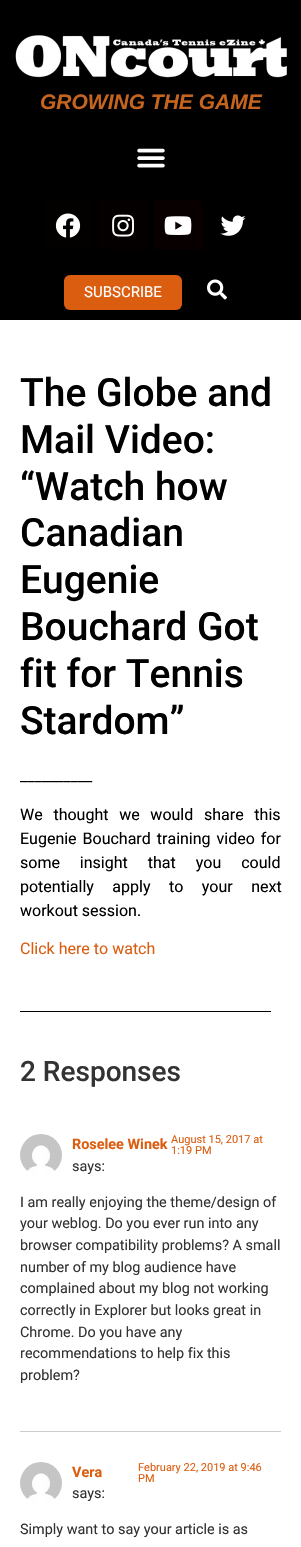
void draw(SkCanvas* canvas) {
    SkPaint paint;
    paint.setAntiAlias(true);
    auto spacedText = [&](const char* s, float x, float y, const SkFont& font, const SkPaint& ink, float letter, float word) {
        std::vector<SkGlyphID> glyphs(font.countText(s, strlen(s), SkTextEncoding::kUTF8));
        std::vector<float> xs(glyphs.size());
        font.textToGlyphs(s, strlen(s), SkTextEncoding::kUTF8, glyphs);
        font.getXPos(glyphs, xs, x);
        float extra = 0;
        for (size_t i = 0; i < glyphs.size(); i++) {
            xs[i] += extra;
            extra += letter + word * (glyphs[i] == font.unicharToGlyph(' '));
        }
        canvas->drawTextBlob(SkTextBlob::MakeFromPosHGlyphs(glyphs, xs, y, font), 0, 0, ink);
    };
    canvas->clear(0xFFFFFFFF);
    paint.setColor(0xFF000000);
    canvas->drawRect(SkRect::MakeXYWH(0, 0, 301, 320), paint);
    canvas->drawImageRect(SkImages::DeferredFromEncodedData(SkData::MakeFromFileName("img1.png")), SkRect::MakeXYWH(15, 35, 272, 43), SkSamplingOptions());
    SkFont font1(fontMgr->matchFamilyStyle("Liberation Sans", SkFontStyle::BoldItalic()), 21);
    font1.setSubpixel(true);
    paint.setColor(0xFFC5641F);
    canvas->drawString("GROWING THE GAME", 40, 109, font1, paint);
    canvas->drawImageRect(SkImages::DeferredFromEncodedData(SkData::MakeFromFileName("img2.png")), SkRect::MakeXYWH(137, 148, 28, 20), SkSamplingOptions());
    paint.setColor(0xFF030000);
    canvas->drawRoundRect(SkRect::MakeXYWH(43, 200, 50, 50), 5, 5, paint);
    canvas->drawImageRect(SkImages::DeferredFromEncodedData(SkData::MakeFromFileName("img3.png")), SkRect::MakeXYWH(55, 213, 26, 25), SkSamplingOptions());
    paint.setColor(0xFF050000);
    canvas->drawRoundRect(SkRect::MakeXYWH(98, 200, 50, 50), 5, 5, paint);
    canvas->drawImageRect(SkImages::DeferredFromEncodedData(SkData::MakeFromFileName("img4.png")), SkRect::MakeXYWH(112, 214, 22, 23), SkSamplingOptions());
    paint.setColor(0xFF080000);
    canvas->drawRoundRect(SkRect::MakeXYWH(153, 200, 50, 50), 5, 5, paint);
    canvas->drawImageRect(SkImages::DeferredFromEncodedData(SkData::MakeFromFileName("img5.png")), SkRect::MakeXYWH(164, 216, 28, 19), SkSamplingOptions());
    canvas->drawImageRect(SkImages::DeferredFromEncodedData(SkData::MakeFromFileName("img6.png")), SkRect::MakeXYWH(220, 215, 26, 21), SkSamplingOptions());
    paint.setColor(0xFFDB5D10);
    canvas->drawRoundRect(SkRect::MakeXYWH(64, 275, 118, 35), 6, 6, paint);
    SkFont font2(fontMgr->matchFamilyStyle("Roboto", SkFontStyle::Normal()), 15);
    font2.setSubpixel(true);
    paint.setColor(0xFFFFFFFF);
    canvas->drawString("SUBSCRIBE", 84, 297, font2, paint);
    canvas->drawImageRect(SkImages::DeferredFromEncodedData(SkData::MakeFromFileName("img7.png")), SkRect::MakeXYWH(207, 279, 20, 21), SkSamplingOptions());
    SkFont font3(fontMgr->matchFamilyStyle("Roboto", SkFontStyle(500, SkFontStyle::kNormal_Width, SkFontStyle::kUpright_Slant)), 39);
    font3.setSubpixel(true);
    paint.setColor(0xFF000000);
    canvas->drawString("The Globe and", 20, 406, font3, paint);
    canvas->drawString("Mail Video:", 20, 453, font3, paint);
    canvas->drawString("“Watch how", 20, 500, font3, paint);
    canvas->drawString("Canadian", 20, 546, font3, paint);
    canvas->drawString("Eugenie", 20, 593, font3, paint);
    canvas->drawString("Bouchard Got", 20, 640, font3, paint);
    canvas->drawString("fit for Tennis", 20, 687, font3, paint);
    canvas->drawString("Stardom”", 20, 734, font3, paint);
    SkFont font4(fontMgr->matchFamilyStyle("Roboto", SkFontStyle::Normal()), 16);
    font4.setSubpixel(true);
    canvas->drawString("__________", 20, 781, font4, paint);
    spacedText("We thought we would share this", 20, 820, font4, paint, 0, 6.75f);
    spacedText("Eugenie Bouchard training video for", 20, 844, font4, paint, 0, 2);
    spacedText("some insight that you could", 20, 868, font4, paint, 0, 16);
    spacedText("potentially apply to your next", 20, 892, font4, paint, 0, 14.5f);
    canvas->drawString("workout session.", 20, 916, font4, paint);
    paint.setColor(0xFFDB5D10);
    canvas->drawString("Click here to watch", 20, 954, font4, paint);
    paint.setColor(0xFF000000);
    canvas->drawRect(SkRect::MakeXYWH(20, 1011, 251, 1), paint);
    SkFont font5(fontMgr->matchFamilyStyle("Roboto", SkFontStyle(500, SkFontStyle::kNormal_Width, SkFontStyle::kUpright_Slant)), 28);
    font5.setSubpixel(true);
    paint.setColor(0xFF333333);
    canvas->drawString("2 Responses", 20, 1081, font5, paint);
    paint.setColor(0xFFCCCCCC);
    canvas->drawRect(SkRect::MakeXYWH(20, 1431, 261, 1), paint);
    canvas->drawImageRect(SkImages::DeferredFromEncodedData(SkData::MakeFromFileName("img8.png")), SkRect::MakeXYWH(20, 1134, 42, 40), SkSamplingOptions());
    SkFont font6(fontMgr->matchFamilyStyle("Roboto", SkFontStyle::Bold()), 14.4f);
    font6.setSubpixel(true);
    paint.setColor(0xFFDB5D10);
    canvas->drawString("Roselee Winek", 72, 1149, font6, paint);
    SkFont font7(fontMgr->matchFamilyStyle("Roboto", SkFontStyle::Normal()), 14.4f);
    font7.setSubpixel(true);
    paint.setColor(0xFF333333);
    canvas->drawString("says:", 72, 1171, font7, paint);
    SkFont font8(fontMgr->matchFamilyStyle("Roboto", SkFontStyle::Normal()), 11);
    font8.setSubpixel(true);
    paint.setColor(0xFFDB5D10);
    canvas->drawString("August 15, 2017 at", 171, 1143, font8, paint);
    canvas->drawString("1:19 PM", 171, 1154, font8, paint);
    paint.setColor(0xFF333333);
    canvas->drawString("I am really enjoying the theme/design of", 20, 1207, font7, paint);
    canvas->drawString("your weblog. Do you ever run into any", 20, 1228, font7, paint);
    canvas->drawString("browser compatibility problems? A small", 20, 1250, font7, paint);
    canvas->drawString("number of my blog audience have", 20, 1272, font7, paint);
    canvas->drawString("complained about my blog not working", 20, 1293, font7, paint);
    canvas->drawString("correctly in Explorer but looks great in", 20, 1315, font7, paint);
    canvas->drawString("Chrome. Do you have any", 20, 1337, font7, paint);
    canvas->drawString("recommendations to help fix this", 20, 1358, font7, paint);
    canvas->drawString("problem?", 20, 1380, font7, paint);
    canvas->drawImageRect(SkImages::DeferredFromEncodedData(SkData::MakeFromFileName("img8.png")), SkRect::MakeXYWH(20, 1462, 42, 40), SkSamplingOptions());
    paint.setColor(0xFFDB5D10);
    canvas->drawString("Vera", 72, 1477, font6, paint);
    paint.setColor(0xFF333333);
    canvas->drawString("says:", 72, 1498, font7, paint);
    paint.setColor(0xFFDB5D10);
    canvas->drawString("February 22, 2019 at 9:46", 138, 1471, font8, paint);
    canvas->drawString("PM", 138, 1482, font8, paint);
    paint.setColor(0xFF333333);
    canvas->drawString("Simply want to say your article is as", 20, 1534, font7, paint);
}
